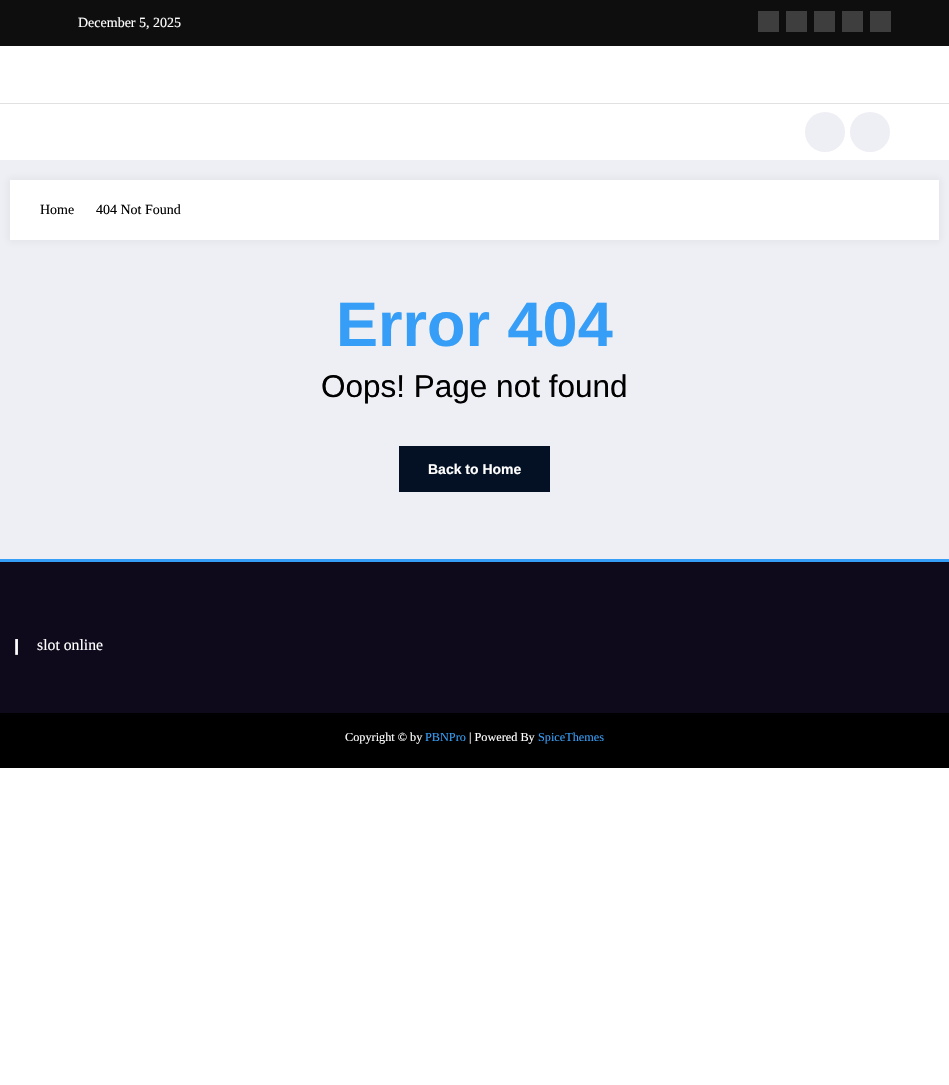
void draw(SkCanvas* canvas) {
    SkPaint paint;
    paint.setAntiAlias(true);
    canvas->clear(0xFFFFFFFF);
    paint.setColor(0xFFEEEEF5);
    canvas->drawRect(SkRect::MakeXYWH(0, 160, 949, 399), paint);
    paint.setColor(0xFF0E0E0E);
    canvas->drawRect(SkRect::MakeXYWH(0, 0, 949, 46), paint);
    SkFont font1(fontMgr->matchFamilyStyle("Liberation Serif", SkFontStyle::Normal()), 14);
    font1.setSubpixel(true);
    paint.setColor(0xFFFFFFFF);
    canvas->drawString("December 5, 2025", 78, 27, font1, paint);
    paint.setColor(0xFF3E3E3E);
    canvas->drawRect(SkRect::MakeXYWH(758, 11, 21, 21), paint);
    canvas->drawRect(SkRect::MakeXYWH(786, 11, 21, 21), paint);
    canvas->drawRect(SkRect::MakeXYWH(814, 11, 21, 21), paint);
    canvas->drawRect(SkRect::MakeXYWH(842, 11, 21, 21), paint);
    canvas->drawRect(SkRect::MakeXYWH(870, 11, 21, 21), paint);
    paint.setColor(0xFFE1E1E1);
    canvas->drawRect(SkRect::MakeXYWH(0, 103, 949, 1), paint);
    paint.setColor(0xFFEEEEF5);
    canvas->drawCircle(825, 132, 20, paint);
    canvas->drawCircle(870, 132, 20, paint);
    paint.setColor(0x0D171723);
    paint.setMaskFilter(SkMaskFilter::MakeBlur(kNormal_SkBlurStyle, 4));
    canvas->drawRect(SkRect::MakeXYWH(8, 178, 933, 64), paint);
    paint.setMaskFilter(nullptr);
    paint.setColor(0xFFFFFFFF);
    canvas->drawRect(SkRect::MakeXYWH(10, 180, 929, 60), paint);
    paint.setColor(0xFF000000);
    canvas->drawString("Home", 40, 214, font1, paint);
    canvas->drawString("404 Not Found", 96, 214, font1, paint);
    SkFont font2(fontMgr->matchFamilyStyle("Liberation Sans", SkFontStyle::Bold()), 63);
    font2.setSubpixel(true);
    paint.setColor(0xFF369EF6);
    canvas->drawString("Error 404", 336, 346, font2, paint);
    SkFont font3(fontMgr->matchFamilyStyle("Liberation Sans", SkFontStyle::Normal()), 31.5f);
    font3.setSubpixel(true);
    paint.setColor(0xFF000000);
    canvas->drawString("Oops! Page not found", 321, 397, font3, paint);
    paint.setColor(0xFF041124);
    canvas->drawRect(SkRect::MakeXYWH(399, 446, 151, 46), paint);
    SkFont font4(fontMgr->matchFamilyStyle("Liberation Sans", SkFontStyle::Bold()), 14);
    font4.setSubpixel(true);
    paint.setColor(0xFFFFFFFF);
    canvas->drawString("Back to Home", 428, 474, font4, paint);
    paint.setColor(0xFF369EF6);
    canvas->drawRect(SkRect::MakeXYWH(0, 559, 949, 3), paint);
    paint.setColor(0xFF0E0A1C);
    canvas->drawRect(SkRect::MakeXYWH(0, 562, 949, 151), paint);
    SkFont font5(fontMgr->matchFamilyStyle("DejaVu Sans", SkFontStyle::Normal()), 15.75f);
    font5.setSubpixel(true);
    paint.setColor(0xFFFFFFFF);
    canvas->drawString("❙", 10, 651, font5, paint);
    SkFont font6(fontMgr->matchFamilyStyle("Liberation Serif", SkFontStyle::Normal()), 15.75f);
    font6.setSubpixel(true);
    canvas->drawString("slot online", 37, 650, font6, paint);
    paint.setColor(0xFF000000);
    canvas->drawRect(SkRect::MakeXYWH(0, 713, 949, 55), paint);
    SkFont font7(fontMgr->matchFamilyStyle("Liberation Serif", SkFontStyle::Normal()), 12.25f);
    font7.setSubpixel(true);
    paint.setColor(0xFFFFFFFF);
    canvas->drawString("Copyright © by", 345, 741, font7, paint);
    paint.setColor(0xFF369EF6);
    canvas->drawString("PBNPro", 425, 741, font7, paint);
    paint.setColor(0xFFFFFFFF);
    canvas->drawString("| Powered By", 469, 741, font7, paint);
    paint.setColor(0xFF369EF6);
    canvas->drawString("SpiceThemes", 538, 741, font7, paint);
}
